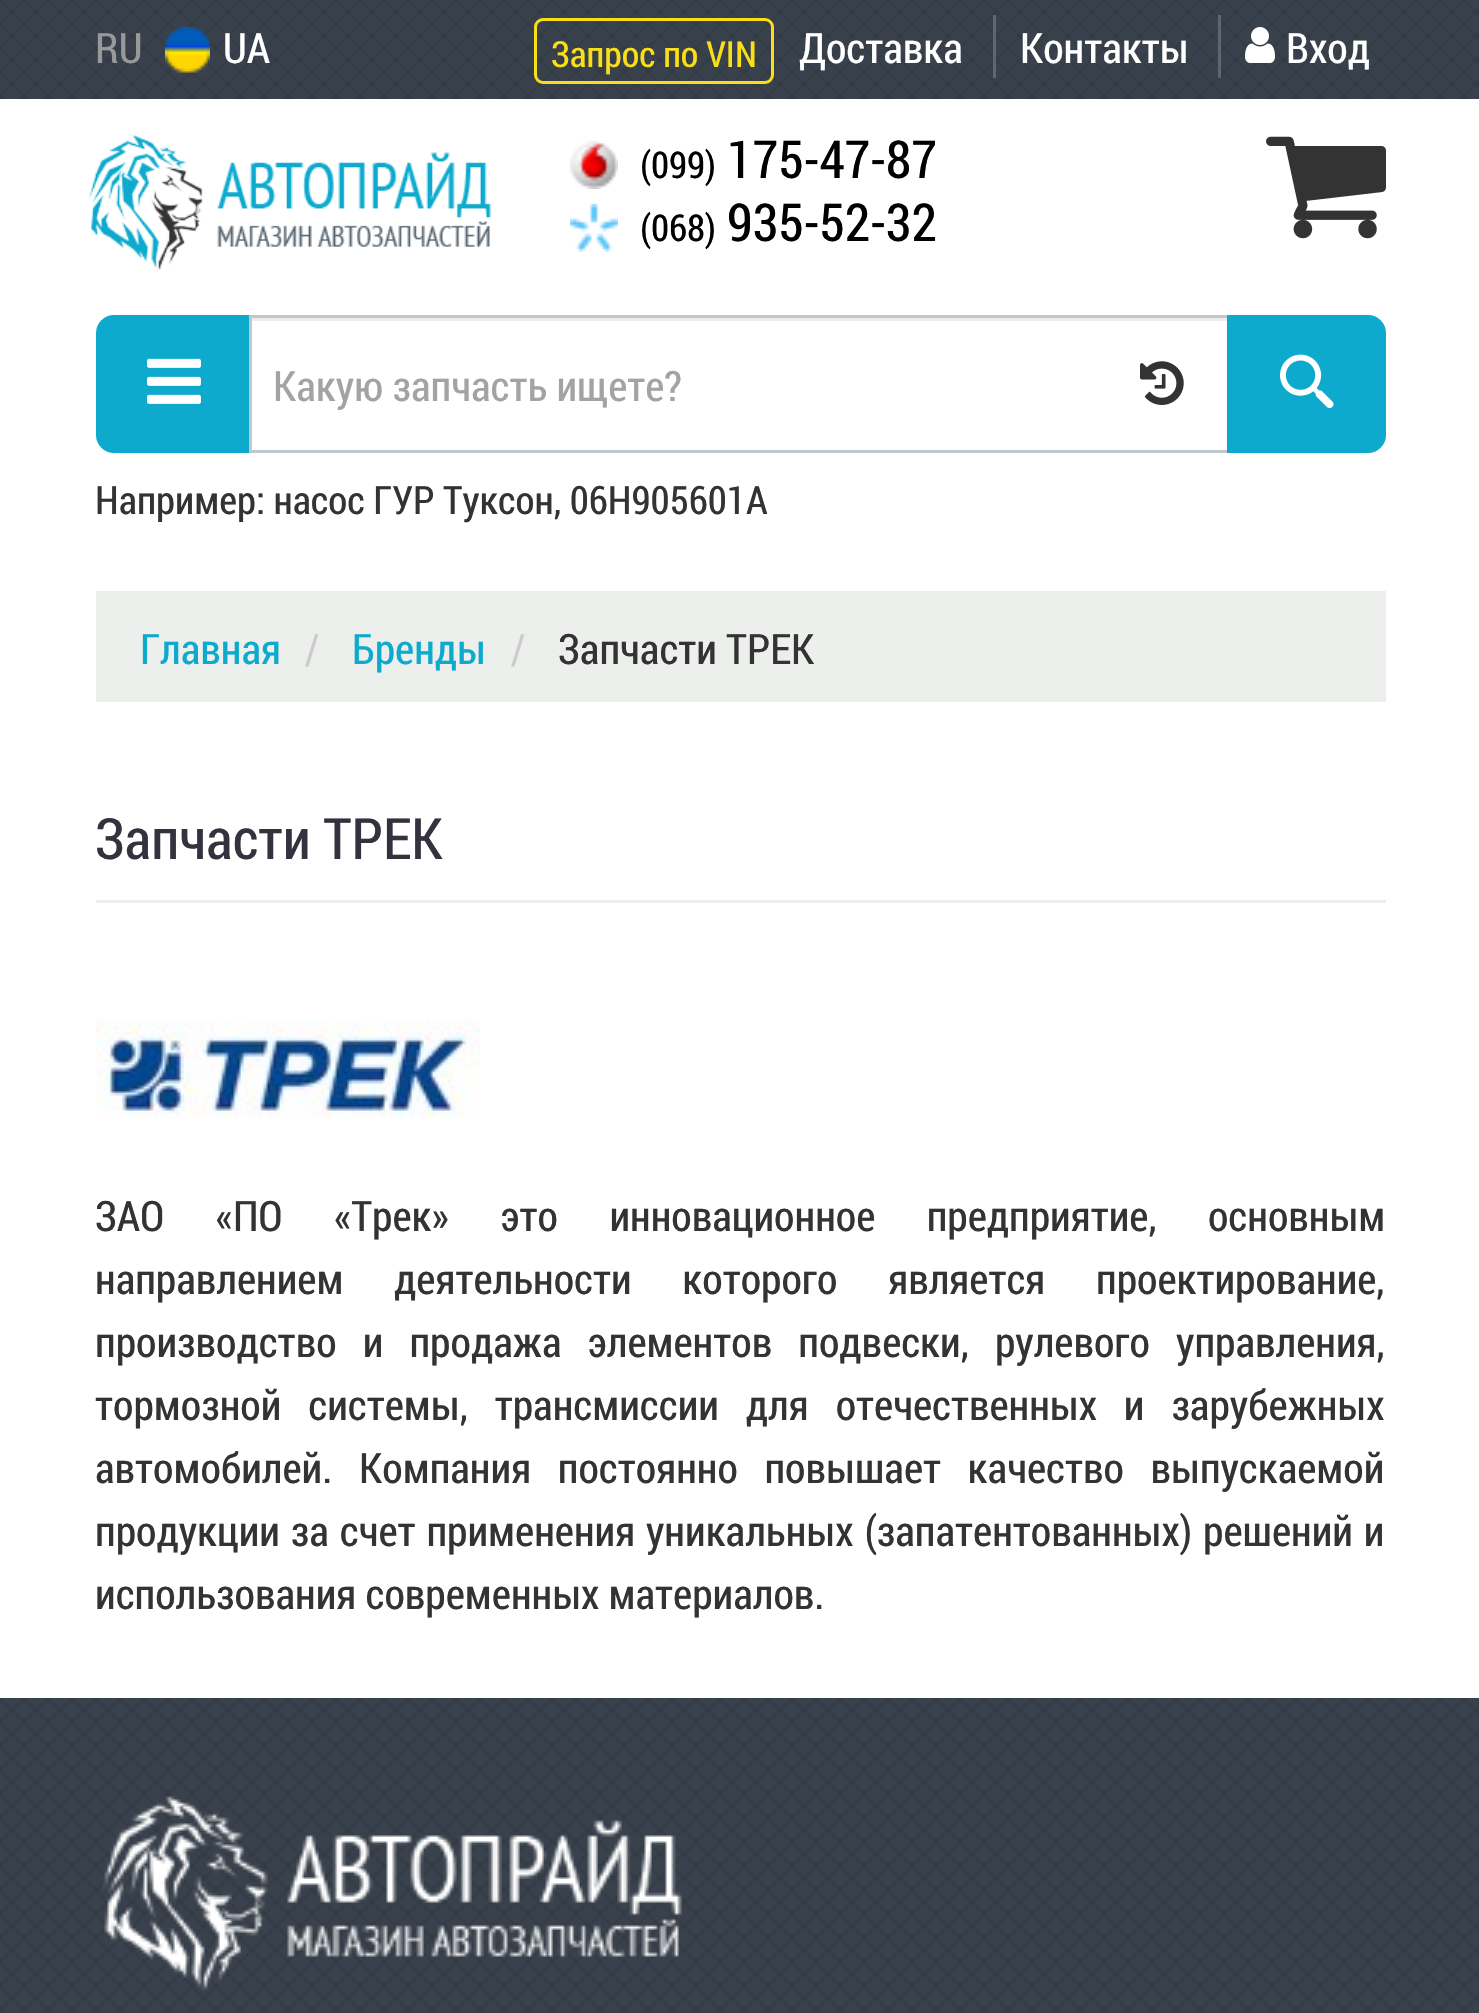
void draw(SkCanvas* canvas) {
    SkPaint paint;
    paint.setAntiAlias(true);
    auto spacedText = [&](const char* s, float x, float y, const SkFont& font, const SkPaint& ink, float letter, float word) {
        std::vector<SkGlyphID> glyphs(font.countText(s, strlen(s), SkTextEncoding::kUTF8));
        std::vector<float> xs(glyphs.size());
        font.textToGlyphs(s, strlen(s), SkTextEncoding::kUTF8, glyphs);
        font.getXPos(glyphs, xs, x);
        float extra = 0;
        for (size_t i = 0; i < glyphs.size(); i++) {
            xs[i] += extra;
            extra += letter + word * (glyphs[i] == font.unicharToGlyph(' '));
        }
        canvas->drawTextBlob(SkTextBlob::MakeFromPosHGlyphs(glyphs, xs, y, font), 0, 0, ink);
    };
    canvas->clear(0xFFFFFFFF);
    paint.setColor(0xFF39414C);
    canvas->drawRect(SkRect::MakeXYWH(0, 0, 1479, 99), paint);
    canvas->drawImageRect(SkImages::DeferredFromEncodedData(SkData::MakeFromFileName("img1.png")), SkRect::MakeXYWH(0, 0, 1479, 99), SkSamplingOptions());
    SkFont font1(fontMgr->matchFamilyStyle("Roboto Condensed", SkFontStyle::Normal()), 42);
    font1.setSubpixel(true);
    paint.setColor(0xFF999999);
    canvas->drawString("RU", 95, 63, font1, paint);
    canvas->drawImageRect(SkImages::DeferredFromEncodedData(SkData::MakeFromFileName("img2.png")), SkRect::MakeXYWH(165, 27, 45, 46), SkSamplingOptions());
    paint.setColor(0xFFFFFFFF);
    canvas->drawString("UA", 223, 63, font1, paint);
    paint.setStyle(SkPaint::kStroke_Style);
    paint.setStrokeWidth(3);
    paint.setColor(0xFFF9DF18);
    canvas->drawRoundRect(SkRect::MakeXYWH(535.5f, 19.5f, 237, 63), 7.5f, 7.5f, paint);
    SkFont font2(fontMgr->matchFamilyStyle("Roboto Condensed", SkFontStyle::Normal()), 36);
    font2.setSubpixel(true);
    paint.setStyle(SkPaint::kFill_Style);
    canvas->drawString("Запрос по VIN", 551, 67, font2, paint);
    paint.setColor(0x33FFFFFF);
    canvas->drawRect(SkRect::MakeXYWH(993, 15, 3, 63), paint);
    paint.setColor(0xFFFFFFFF);
    canvas->drawString("Доставка", 799, 63, font1, paint);
    paint.setColor(0x33FFFFFF);
    canvas->drawRect(SkRect::MakeXYWH(1218, 15, 3, 63), paint);
    paint.setColor(0xFFFFFFFF);
    canvas->drawString("Контакты", 1020, 63, font1, paint);
    canvas->drawImageRect(SkImages::DeferredFromEncodedData(SkData::MakeFromFileName("img3.png")), SkRect::MakeXYWH(1245, 27, 30, 36), SkSamplingOptions());
    canvas->drawString("Вход", 1286, 63, font1, paint);
    canvas->drawImageRect(SkImages::DeferredFromEncodedData(SkData::MakeFromFileName("img4.png")), SkRect::MakeXYWH(88, 134, 404, 137), SkSamplingOptions());
    canvas->drawImageRect(SkImages::DeferredFromEncodedData(SkData::MakeFromFileName("img5.png")), SkRect::MakeXYWH(570, 141, 48, 48), SkSamplingOptions());
    SkFont font3(fontMgr->matchFamilyStyle("Roboto Condensed", SkFontStyle::Normal()), 37);
    font3.setSubpixel(true);
    paint.setColor(0xFF000000);
    canvas->drawString("(099)", 640, 178, font3, paint);
    SkFont font4(fontMgr->matchFamilyStyle("Roboto Condensed", SkFontStyle::Normal()), 52.5f);
    font4.setSubpixel(true);
    canvas->drawString("175-47-87", 727, 178, font4, paint);
    canvas->drawImageRect(SkImages::DeferredFromEncodedData(SkData::MakeFromFileName("img6.png")), SkRect::MakeXYWH(570, 204, 48, 48), SkSamplingOptions());
    canvas->drawString("(068)", 640, 241, font3, paint);
    canvas->drawString("935-52-32", 727, 241, font4, paint);
    canvas->drawImageRect(SkImages::DeferredFromEncodedData(SkData::MakeFromFileName("img7.png")), SkRect::MakeXYWH(1266, 136, 120, 103), SkSamplingOptions());
    paint.setColor(0xFF0DAACE);
    canvas->drawPath(SkPathBuilder().moveTo(114, 316.5f).lineTo(250.5f, 316.5f).lineTo(250.5f, 451.5f).lineTo(114, 451.5f).cubicTo(105, 451.5f, 97.5f, 444, 97.5f, 435).lineTo(97.5f, 333).cubicTo(97.5f, 324, 105, 316.5f, 114, 316.5f).close().detach(), paint);
    paint.setStyle(SkPaint::kStroke_Style);
    canvas->drawPath(SkPathBuilder().moveTo(114, 316.5f).lineTo(250.5f, 316.5f).lineTo(250.5f, 451.5f).lineTo(114, 451.5f).cubicTo(105, 451.5f, 97.5f, 444, 97.5f, 435).lineTo(97.5f, 333).cubicTo(97.5f, 324, 105, 316.5f, 114, 316.5f).close().detach(), paint);
    canvas->drawImageRect(SkImages::DeferredFromEncodedData(SkData::MakeFromFileName("img8.png")), SkRect::MakeXYWH(147, 358, 54, 46), SkSamplingOptions());
    paint.setStyle(SkPaint::kFill_Style);
    paint.setColor(0xFFECECEC);
    canvas->drawRect(SkRect::MakeXYWH(252, 318, 975, 3), paint);
    paint.setStyle(SkPaint::kStroke_Style);
    paint.setColor(0xFFBEC8CE);
    canvas->drawRect(SkRect::MakeXYWH(250.5f, 316.5f, 978, 135), paint);
    paint.setStyle(SkPaint::kFill_Style);
    paint.setColor(0xFFA3A3A3);
    canvas->drawString("Какую запчасть ищете?", 273, 401, font1, paint);
    canvas->drawImageRect(SkImages::DeferredFromEncodedData(SkData::MakeFromFileName("img9.png")), SkRect::MakeXYWH(1140, 361, 44, 44), SkSamplingOptions());
    paint.setColor(0xFF0DAACE);
    canvas->drawPath(SkPathBuilder().moveTo(1228.5f, 316.5f).lineTo(1368, 316.5f).cubicTo(1377, 316.5f, 1384.5f, 324, 1384.5f, 333).lineTo(1384.5f, 435).cubicTo(1384.5f, 444, 1377, 451.5f, 1368, 451.5f).lineTo(1228.5f, 451.5f).close().detach(), paint);
    paint.setStyle(SkPaint::kStroke_Style);
    canvas->drawPath(SkPathBuilder().moveTo(1228.5f, 316.5f).lineTo(1368, 316.5f).cubicTo(1377, 316.5f, 1384.5f, 324, 1384.5f, 333).lineTo(1384.5f, 435).cubicTo(1384.5f, 444, 1377, 451.5f, 1368, 451.5f).lineTo(1228.5f, 451.5f).close().detach(), paint);
    canvas->drawImageRect(SkImages::DeferredFromEncodedData(SkData::MakeFromFileName("img10.png")), SkRect::MakeXYWH(1280, 354, 54, 55), SkSamplingOptions());
    SkFont font5(fontMgr->matchFamilyStyle("Roboto Condensed", SkFontStyle::Normal()), 39);
    font5.setSubpixel(true);
    paint.setStyle(SkPaint::kFill_Style);
    paint.setColor(0xFF333333);
    canvas->drawString("Например: насос ГУР Туксон, 06H905601A", 95, 514, font5, paint);
    paint.setColor(0xFFEDEFED);
    canvas->drawRect(SkRect::MakeXYWH(96, 591, 1290, 111), paint);
    paint.setColor(0xFF0DAACE);
    canvas->drawString("Главная", 140, 664, font1, paint);
    paint.setColor(0xFFCCCCCC);
    canvas->drawString("/", 305, 664, font1, paint);
    paint.setColor(0xFF0DAACE);
    canvas->drawString("Бренды", 352, 664, font1, paint);
    paint.setColor(0xFFCCCCCC);
    canvas->drawString("/", 511, 664, font1, paint);
    paint.setColor(0xFF333333);
    canvas->drawString("Запчасти ТРЕК", 558, 664, font1, paint);
    paint.setColor(0xFFEDEDED);
    canvas->drawRect(SkRect::MakeXYWH(96, 900, 1290, 3), paint);
    SkFont font6(fontMgr->matchFamilyStyle("Roboto Condensed", SkFontStyle::Normal()), 57);
    font6.setSubpixel(true);
    paint.setColor(0xFF33333F);
    canvas->drawString("Запчасти ТРЕК", 95, 859, font6, paint);
    canvas->drawImageRect(SkImages::DeferredFromEncodedData(SkData::MakeFromFileName("img11.png")), SkRect::MakeXYWH(96, 1019, 384, 100), SkSamplingOptions());
    paint.setColor(0xFF333333);
    spacedText("ЗАО «ПО «Трек» это инновационное предприятие, основным", 95, 1231, font1, paint, 0, 42.25f);
    spacedText("направлением деятельности которого является проектирование,", 95, 1294, font1, paint, 0, 41.5f);
    spacedText("производство и продажа элементов подвески, рулевого управления,", 95, 1357, font1, paint, 0, 17);
    spacedText("тормозной системы, трансмиссии для отечественных и зарубежных", 95, 1420, font1, paint, 0, 17.75f);
    spacedText("автомобилей. Компания постоянно повышает качество выпускаемой", 95, 1483, font1, paint, 0, 17.5f);
    spacedText("продукции за счет применения уникальных (запатентованных) решений и", 95, 1546, font1, paint, 0, 1.75f);
    canvas->drawString("использования современных материалов.", 95, 1609, font1, paint);
    paint.setColor(0xFF39414C);
    canvas->drawRect(SkRect::MakeXYWH(0, 1698, 1479, 315), paint);
    canvas->drawImageRect(SkImages::DeferredFromEncodedData(SkData::MakeFromFileName("img12.png")), SkRect::MakeXYWH(0, 1698, 1479, 315), SkSamplingOptions());
    canvas->drawImageRect(SkImages::DeferredFromEncodedData(SkData::MakeFromFileName("img13.png")), SkRect::MakeXYWH(102, 1796, 580, 195), SkSamplingOptions());
}
